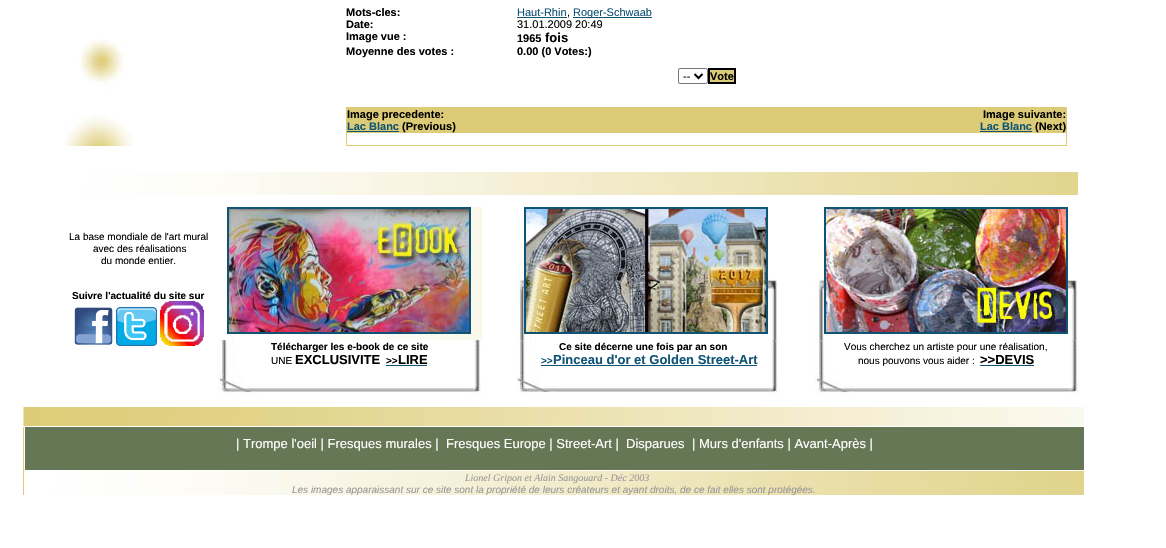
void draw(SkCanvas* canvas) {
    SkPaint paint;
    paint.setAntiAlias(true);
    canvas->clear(0xFFFFFFFF);
    canvas->drawImageRect(SkImages::DeferredFromEncodedData(SkData::MakeFromFileName("img1.png")), SkRect::MakeXYWH(63, 39, 70, 107), SkSamplingOptions());
    SkFont font1(fontMgr->matchFamilyStyle("Liberation Sans", SkFontStyle::Bold()), 11);
    font1.setSubpixel(true);
    paint.setColor(0xFF000000);
    canvas->drawString("Mots-cles:", 346, 16, font1, paint);
    SkFont font2(fontMgr->matchFamilyStyle("Liberation Sans", SkFontStyle::Normal()), 11);
    font2.setSubpixel(true);
    paint.setColor(0xFF0F5475);
    canvas->drawString("Haut-Rhin", 517, 16, font2, paint);
    canvas->drawRect(SkRect::MakeXYWH(517, 17, 50, 1), paint);
    paint.setColor(0xFF000000);
    canvas->drawString(",", 567, 16, font2, paint);
    paint.setColor(0xFF0F5475);
    canvas->drawRect(SkRect::MakeXYWH(573, 17, 79, 1), paint);
    canvas->drawString("Roger-Schwaab", 573, 16, font2, paint);
    paint.setColor(0xFF000000);
    canvas->drawString("Date:", 346, 28, font1, paint);
    canvas->drawString("31.01.2009 20:49", 517, 28, font2, paint);
    canvas->drawString("Image vue :", 346, 40, font1, paint);
    canvas->drawString("1965", 517, 42, font1, paint);
    SkFont font3(fontMgr->matchFamilyStyle("Liberation Sans", SkFontStyle::Bold()), 13);
    font3.setSubpixel(true);
    canvas->drawString("fois", 545, 42, font3, paint);
    canvas->drawString("Moyenne des votes :", 346, 55, font1, paint);
    canvas->drawString("0.00 (0 Votes:)", 517, 55, font1, paint);
    paint.setStyle(SkPaint::kStroke_Style);
    paint.setStrokeWidth(1);
    paint.setColor(0xFF767676);
    canvas->drawRoundRect(SkRect::MakeXYWH(678.5f, 68.5f, 29, 15), 1.5f, 1.5f, paint);
    paint.setStrokeWidth(2);
    paint.setColor(0xFF000000);
    canvas->drawPath(SkPathBuilder().moveTo(694.5f, 74).lineTo(698.5f, 78).lineTo(702.5f, 74).detach(), paint);
    paint.setStyle(SkPaint::kFill_Style);
    canvas->drawString("--", 683, 80, font2, paint);
    paint.setColor(0xFFDDCC77);
    canvas->drawRect(SkRect::MakeXYWH(709, 69, 26, 14), paint);
    paint.setStyle(SkPaint::kStroke_Style);
    paint.setColor(0xFF000000);
    canvas->drawRect(SkRect::MakeXYWH(709, 69, 26, 14), paint);
    paint.setStyle(SkPaint::kFill_Style);
    canvas->drawString("Vote", 710, 80, font1, paint);
    paint.setColor(0xFFDDCC77);
    canvas->drawRect(SkRect::MakeXYWH(346, 107, 721, 39), paint);
    paint.setColor(0xFF000000);
    canvas->drawString("Image precedente:", 347, 118, font1, paint);
    paint.setColor(0xFF0F5475);
    canvas->drawString("Lac Blanc", 347, 130, font1, paint);
    canvas->drawRect(SkRect::MakeXYWH(347, 131, 52, 1), paint);
    paint.setColor(0xFF000000);
    canvas->drawString("(Previous)", 402, 130, font1, paint);
    canvas->drawString("Image suivante:", 983, 118, font1, paint);
    paint.setColor(0xFF0F5475);
    canvas->drawString("Lac Blanc", 980, 130, font1, paint);
    canvas->drawRect(SkRect::MakeXYWH(980, 131, 52, 1), paint);
    paint.setColor(0xFF000000);
    canvas->drawString("(Next)", 1035, 130, font1, paint);
    paint.setColor(0xFFFFFFFF);
    canvas->drawRect(SkRect::MakeXYWH(347, 133, 719, 12), paint);
    canvas->drawImageRect(SkImages::DeferredFromEncodedData(SkData::MakeFromFileName("img2.png")), SkRect::MakeXYWH(60, 172, 1018, 23), SkSamplingOptions());
    SkFont font4(fontMgr->matchFamilyStyle("Liberation Sans", SkFontStyle::Normal()), 10);
    font4.setSubpixel(true);
    paint.setColor(0xFF000000);
    canvas->drawString("La base mondiale de l'art mural", 69, 240, font4, paint);
    canvas->drawString("avec des réalisations", 93, 252, font4, paint);
    canvas->drawString("du monde entier.", 101, 264, font4, paint);
    SkFont font5(fontMgr->matchFamilyStyle("Liberation Sans", SkFontStyle::Bold()), 10);
    font5.setSubpixel(true);
    canvas->drawString("Suivre l'actualité du site sur", 72, 299, font5, paint);
    canvas->drawImageRect(SkImages::DeferredFromEncodedData(SkData::MakeFromFileName("img3.png")), SkRect::MakeXYWH(74, 307, 39, 38), SkSamplingOptions());
    canvas->drawImageRect(SkImages::DeferredFromEncodedData(SkData::MakeFromFileName("img4.png")), SkRect::MakeXYWH(116, 307, 41, 39), SkSamplingOptions());
    canvas->drawImageRect(SkImages::DeferredFromEncodedData(SkData::MakeFromFileName("img5.png")), SkRect::MakeXYWH(160, 301, 44, 45), SkSamplingOptions());
    canvas->drawImageRect(SkImages::DeferredFromEncodedData(SkData::MakeFromFileName("img6.png")), SkRect::MakeXYWH(329, 207, 153, 133), SkSamplingOptions());
    paint.setStyle(SkPaint::kStroke_Style);
    paint.setColor(0xFF0F5475);
    canvas->drawRect(SkRect::MakeXYWH(228, 208, 242, 125), paint);
    canvas->drawImageRect(SkImages::DeferredFromEncodedData(SkData::MakeFromFileName("img7.png")), SkRect::MakeXYWH(229, 209, 240, 123), SkSamplingOptions());
    canvas->drawImageRect(SkImages::DeferredFromEncodedData(SkData::MakeFromFileName("img8.png")), SkRect::MakeXYWH(515, 279, 263, 61), SkSamplingOptions());
    canvas->drawRect(SkRect::MakeXYWH(525, 208, 242, 125), paint);
    canvas->drawImageRect(SkImages::DeferredFromEncodedData(SkData::MakeFromFileName("img9.png")), SkRect::MakeXYWH(526, 209, 240, 123), SkSamplingOptions());
    canvas->drawImageRect(SkImages::DeferredFromEncodedData(SkData::MakeFromFileName("img10.png")), SkRect::MakeXYWH(814, 279, 264, 61), SkSamplingOptions());
    canvas->drawRect(SkRect::MakeXYWH(825, 208, 242, 125), paint);
    canvas->drawImageRect(SkImages::DeferredFromEncodedData(SkData::MakeFromFileName("img11.png")), SkRect::MakeXYWH(826, 209, 240, 123), SkSamplingOptions());
    canvas->drawImageRect(SkImages::DeferredFromEncodedData(SkData::MakeFromFileName("img12.png")), SkRect::MakeXYWH(217, 340, 265, 54), SkSamplingOptions());
    paint.setStyle(SkPaint::kFill_Style);
    paint.setColor(0xFF000000);
    canvas->drawString("Télécharger les e-book de ce site", 271, 350, font5, paint);
    canvas->drawString("UNE", 271, 364, font4, paint);
    canvas->drawString("EXCLUSIVITE", 295, 364, font3, paint);
    canvas->drawString(">>", 386, 364, font5, paint);
    paint.setColor(0xFF0F5475);
    canvas->drawRect(SkRect::MakeXYWH(386, 365, 41, 1), paint);
    paint.setColor(0xFF000000);
    canvas->drawString("LIRE", 398, 364, font3, paint);
    canvas->drawImageRect(SkImages::DeferredFromEncodedData(SkData::MakeFromFileName("img13.png")), SkRect::MakeXYWH(515, 340, 263, 54), SkSamplingOptions());
    canvas->drawString("Ce site décerne une fois par an son", 559, 350, font5, paint);
    paint.setColor(0xFF0F5475);
    canvas->drawString(">>", 541, 364, font5, paint);
    canvas->drawRect(SkRect::MakeXYWH(541, 365, 216, 1), paint);
    canvas->drawString("Pinceau d'or et Golden Street-Art", 553, 364, font3, paint);
    canvas->drawImageRect(SkImages::DeferredFromEncodedData(SkData::MakeFromFileName("img14.png")), SkRect::MakeXYWH(814, 340, 264, 54), SkSamplingOptions());
    paint.setColor(0xFF000000);
    canvas->drawString("Vous cherchez un artiste pour une réalisation,", 844, 350, font4, paint);
    canvas->drawString("nous pouvons vous aider :", 858, 364, font4, paint);
    canvas->drawString(">>DEVIS", 980, 364, font3, paint);
    paint.setColor(0xFF0F5475);
    canvas->drawRect(SkRect::MakeXYWH(980, 365, 54, 1), paint);
    canvas->drawImageRect(SkImages::DeferredFromEncodedData(SkData::MakeFromFileName("img15.png")), SkRect::MakeXYWH(23, 407, 1061, 19), SkSamplingOptions());
    paint.setColor(0xFFDDCC77);
    canvas->drawRect(SkRect::MakeXYWH(23, 427, 1, 69), paint);
    paint.setColor(0xFF667755);
    canvas->drawRect(SkRect::MakeXYWH(25, 427, 1059, 43), paint);
    SkFont font6(fontMgr->matchFamilyStyle("Liberation Sans", SkFontStyle::Normal()), 13);
    font6.setSubpixel(true);
    paint.setColor(0xFFFFFFFF);
    canvas->drawString("| Trompe l'oeil | Fresques murales |", 236, 448, font6, paint);
    canvas->drawString("Fresques Europe | Street-Art |", 446, 448, font6, paint);
    canvas->drawString("Disparues", 626, 448, font6, paint);
    canvas->drawString("| Murs d'enfants | Avant-Après |", 692, 448, font6, paint);
    canvas->drawRect(SkRect::MakeXYWH(22, 495, 2, 1), paint);
    canvas->drawImageRect(SkImages::DeferredFromEncodedData(SkData::MakeFromFileName("img16.png")), SkRect::MakeXYWH(25, 471, 1059, 24), SkSamplingOptions());
    SkFont font7(fontMgr->matchFamilyStyle("Liberation Serif", SkFontStyle::Italic()), 10);
    font7.setSubpixel(true);
    paint.setColor(0xFF999999);
    canvas->drawString("Lionel Gripon et Alain Sangouard - Déc 2003", 465, 481, font7, paint);
    SkFont font8(fontMgr->matchFamilyStyle("Liberation Sans", SkFontStyle::Italic()), 10);
    font8.setSubpixel(true);
    canvas->drawString("Les images apparaissant sur ce site sont la propriété de leurs créateurs et ayant droits, de ce fait elles sont protégées.", 292, 493, font8, paint);
}
